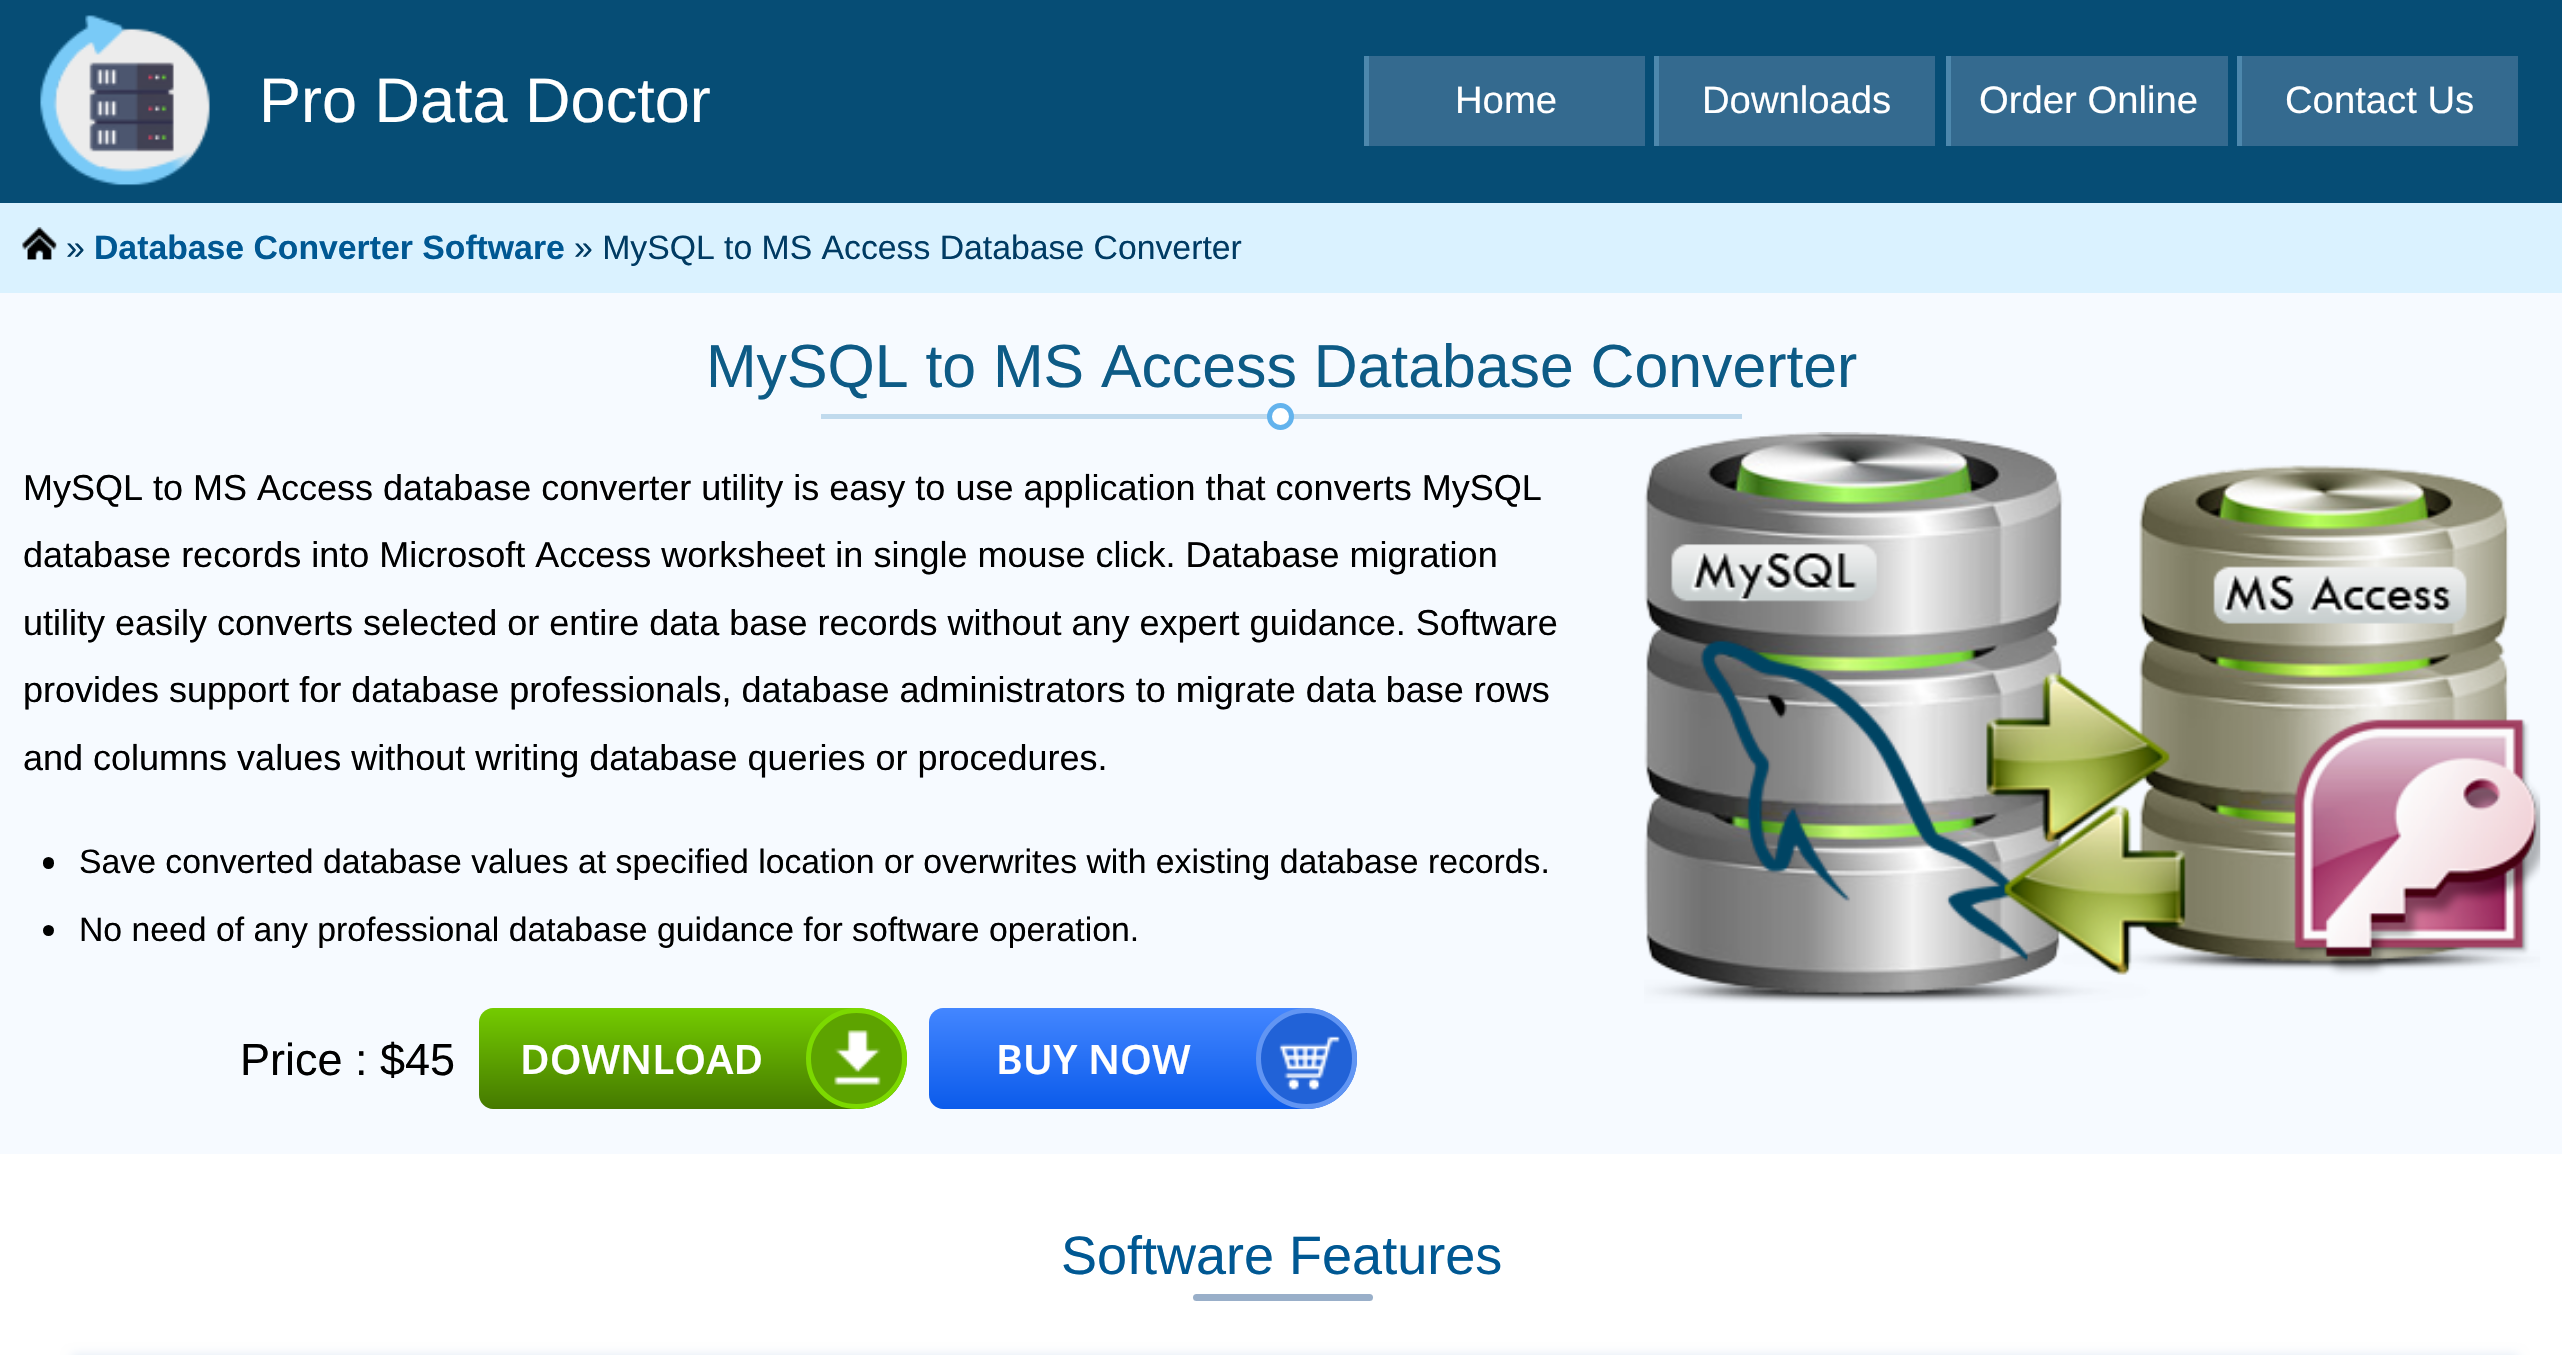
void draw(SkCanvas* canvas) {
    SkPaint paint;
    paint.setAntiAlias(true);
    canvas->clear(0xFFF6FAFF);
    paint.setColor(0xFF064D75);
    canvas->drawRect(SkRect::MakeXYWH(0, 0, 2562, 203), paint);
    canvas->drawImageRect(SkImages::DeferredFromEncodedData(SkData::MakeFromFileName("img1.png")), SkRect::MakeXYWH(40, 15, 170, 171), SkSamplingOptions());
    SkFont font1(fontMgr->matchFamilyStyle("Liberation Sans", SkFontStyle::Normal()), 63);
    font1.setSubpixel(true);
    paint.setColor(0xFFFFFFFF);
    canvas->drawString("Pro Data Doctor", 259, 122, font1, paint);
    paint.setColor(0xFF346A8F);
    canvas->drawRect(SkRect::MakeXYWH(1369, 56, 276, 90), paint);
    paint.setColor(0xFF4D88AD);
    canvas->drawRect(SkRect::MakeXYWH(1364, 56, 5, 90), paint);
    SkFont font2(fontMgr->matchFamilyStyle("Liberation Sans", SkFontStyle::Normal()), 38.25f);
    font2.setSubpixel(true);
    paint.setColor(0xFFFFFFFF);
    canvas->drawString("Home", 1455, 113, font2, paint);
    paint.setColor(0xFF346A8F);
    canvas->drawRect(SkRect::MakeXYWH(1659, 56, 276, 90), paint);
    paint.setColor(0xFF4D88AD);
    canvas->drawRect(SkRect::MakeXYWH(1654, 56, 5, 90), paint);
    paint.setColor(0xFFFFFFFF);
    canvas->drawString("Downloads", 1702, 113, font2, paint);
    paint.setColor(0xFF346A8F);
    canvas->drawRect(SkRect::MakeXYWH(1951, 56, 277, 90), paint);
    paint.setColor(0xFF4D88AD);
    canvas->drawRect(SkRect::MakeXYWH(1946, 56, 5, 90), paint);
    paint.setColor(0xFFFFFFFF);
    canvas->drawString("Order Online", 1979, 113, font2, paint);
    paint.setColor(0xFF346A8F);
    canvas->drawRect(SkRect::MakeXYWH(2242, 56, 276, 90), paint);
    paint.setColor(0xFF4D88AD);
    canvas->drawRect(SkRect::MakeXYWH(2237, 56, 5, 90), paint);
    paint.setColor(0xFFFFFFFF);
    canvas->drawString("Contact Us", 2285, 113, font2, paint);
    paint.setColor(0xFFDAF2FF);
    canvas->drawRect(SkRect::MakeXYWH(0, 203, 2562, 90), paint);
    canvas->drawImageRect(SkImages::DeferredFromEncodedData(SkData::MakeFromFileName("img2.png")), SkRect::MakeXYWH(22, 227, 35, 33), SkSamplingOptions());
    SkFont font3(fontMgr->matchFamilyStyle("Liberation Sans", SkFontStyle::Normal()), 33.75f);
    font3.setSubpixel(true);
    paint.setColor(0xFF003B63);
    canvas->drawString("»", 66, 259, font3, paint);
    SkFont font4(fontMgr->matchFamilyStyle("Liberation Sans", SkFontStyle::Bold()), 33.75f);
    font4.setSubpixel(true);
    paint.setColor(0xFF005893);
    canvas->drawString("Database Converter Software", 94, 259, font4, paint);
    paint.setColor(0xFF003B63);
    canvas->drawString("» MySQL to MS Access Database Converter", 574, 259, font3, paint);
    SkFont font5(fontMgr->matchFamilyStyle("Liberation Sans", SkFontStyle::Normal()), 60.75f);
    font5.setSubpixel(true);
    paint.setColor(0xFF0D5B86);
    canvas->drawString("MySQL to MS Access Database Converter", 706, 387, font5, paint);
    paint.setColor(0xFFC0DAED);
    canvas->drawRect(SkRect::MakeXYWH(821, 414, 921, 5), paint);
    paint.setColor(0xFFFFFFFF);
    canvas->drawCircle(1280.5f, 416.5f, 11, paint);
    paint.setStyle(SkPaint::kStroke_Style);
    paint.setStrokeWidth(5);
    paint.setColor(0xFF63B3ED);
    canvas->drawCircle(1280.5f, 416.5f, 11, paint);
    SkFont font6(fontMgr->matchFamilyStyle("Liberation Sans", SkFontStyle::Normal()), 36);
    font6.setSubpixel(true);
    paint.setStyle(SkPaint::kFill_Style);
    paint.setColor(0xFF000000);
    canvas->drawString("MySQL to MS Access database converter utility is easy to use application that converts MySQL", 23, 500, font6, paint);
    canvas->drawString("database records into Microsoft Access worksheet in single mouse click. Database migration", 23, 567, font6, paint);
    canvas->drawString("utility easily converts selected or entire data base records without any expert guidance. Software", 23, 635, font6, paint);
    canvas->drawString("provides support for database professionals, database administrators to migrate data base rows", 23, 702, font6, paint);
    canvas->drawString("and columns values without writing database queries or procedures.", 23, 770, font6, paint);
    canvas->drawImageRect(SkImages::DeferredFromEncodedData(SkData::MakeFromFileName("img3.png")), SkRect::MakeXYWH(1644, 432, 897, 572), SkSamplingOptions());
    canvas->drawRoundRect(SkRect::MakeXYWH(43, 857, 11, 12), 5.5f, 5.5f, paint);
    canvas->drawString("Save converted database values at specified location or overwrites with existing database records.", 79, 873, font3, paint);
    canvas->drawCircle(48.5f, 930.5f, 5.5f, paint);
    canvas->drawString("No need of any professional database guidance for software operation.", 79, 941, font3, paint);
    SkFont font7(fontMgr->matchFamilyStyle("Liberation Sans", SkFontStyle::Normal()), 45);
    font7.setSubpixel(true);
    canvas->drawString("Price : $45", 240, 1075, font7, paint);
    {
        const SkColor colors[] = {0xFF74CB00, 0xFF457900};
        const float stops[] = {0, 1};
        const SkPoint ends[] = {{693, 1008}, {693, 1109}};
        paint.setShader(SkGradientShader::MakeLinear(ends, colors, stops, 2, SkTileMode::kClamp));
        paint.setAlpha(255);
    }
    canvas->drawPath(SkPathBuilder().moveTo(493, 1008).lineTo(856.5f, 1008).cubicTo(884.5f, 1008, 907, 1030.5f, 907, 1058.5f).cubicTo(907, 1086.5f, 884.5f, 1109, 856.5f, 1109).lineTo(493, 1109).cubicTo(485.5f, 1109, 479, 1102.5f, 479, 1095).lineTo(479, 1022).cubicTo(479, 1014.5f, 485.5f, 1008, 493, 1008).close().detach(), paint);
    SkFont font8(fontMgr->matchFamilyStyle("Noto Sans", SkFontStyle(600, SkFontStyle::kNormal_Width, SkFontStyle::kUpright_Slant)), 40.5f);
    font8.setSubpixel(true);
    paint.setShader(nullptr);
    paint.setColor(0xFFFFFFFF);
    canvas->drawString("DOWNLOAD", 520, 1074, font8, paint);
    paint.setColor(0xFF5DA300);
    canvas->drawCircle(856.5f, 1058.5f, 48, paint);
    paint.setStyle(SkPaint::kStroke_Style);
    paint.setColor(0xFF7CD900);
    canvas->drawCircle(856.5f, 1058.5f, 48, paint);
    canvas->drawImageRect(SkImages::DeferredFromEncodedData(SkData::MakeFromFileName("img4.png")), SkRect::MakeXYWH(834, 1030, 47, 56), SkSamplingOptions());
    paint.setStyle(SkPaint::kFill_Style);
    {
        const SkColor colors[] = {0xFF4386FF, 0xFF0B5BEB};
        const float stops[] = {0, 1};
        const SkPoint ends[] = {{1143, 1008}, {1143, 1109}};
        paint.setShader(SkGradientShader::MakeLinear(ends, colors, stops, 2, SkTileMode::kClamp));
        paint.setAlpha(255);
    }
    canvas->drawPath(SkPathBuilder().moveTo(943, 1008).lineTo(1306.5f, 1008).cubicTo(1334.5f, 1008, 1357, 1030.5f, 1357, 1058.5f).cubicTo(1357, 1086.5f, 1334.5f, 1109, 1306.5f, 1109).lineTo(943, 1109).cubicTo(935.5f, 1109, 929, 1102.5f, 929, 1095).lineTo(929, 1022).cubicTo(929, 1014.5f, 935.5f, 1008, 943, 1008).close().detach(), paint);
    paint.setShader(nullptr);
    paint.setColor(0xFFFFFFFF);
    canvas->drawString("BUY NOW", 996, 1074, font8, paint);
    paint.setColor(0xFF2162D7);
    canvas->drawCircle(1306.5f, 1058.5f, 48, paint);
    paint.setStyle(SkPaint::kStroke_Style);
    paint.setColor(0xFF6195F3);
    canvas->drawCircle(1306.5f, 1058.5f, 48, paint);
    canvas->drawImageRect(SkImages::DeferredFromEncodedData(SkData::MakeFromFileName("img5.png")), SkRect::MakeXYWH(1279, 1036, 61, 54), SkSamplingOptions());
    paint.setStyle(SkPaint::kFill_Style);
    paint.setColor(0xFFFFFFFF);
    canvas->drawRect(SkRect::MakeXYWH(0, 1154, 2562, 201), paint);
    SkFont font9(fontMgr->matchFamilyStyle("Liberation Sans", SkFontStyle::Normal()), 54);
    font9.setSubpixel(true);
    paint.setColor(0xFF005893);
    canvas->drawString("Software Features", 1061, 1274, font9, paint);
    paint.setColor(0xFF99AFC9);
    canvas->drawRoundRect(SkRect::MakeXYWH(1193, 1294, 180, 7), 3.5f, 3.5f, paint);
    paint.setColor(0xFFE1EAF5);
    paint.setMaskFilter(SkMaskFilter::MakeBlur(kNormal_SkBlurStyle, 5.5f));
    canvas->drawRect(SkRect::MakeXYWH(72, 1355, 2446, 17), paint);
    paint.setMaskFilter(nullptr);
}
